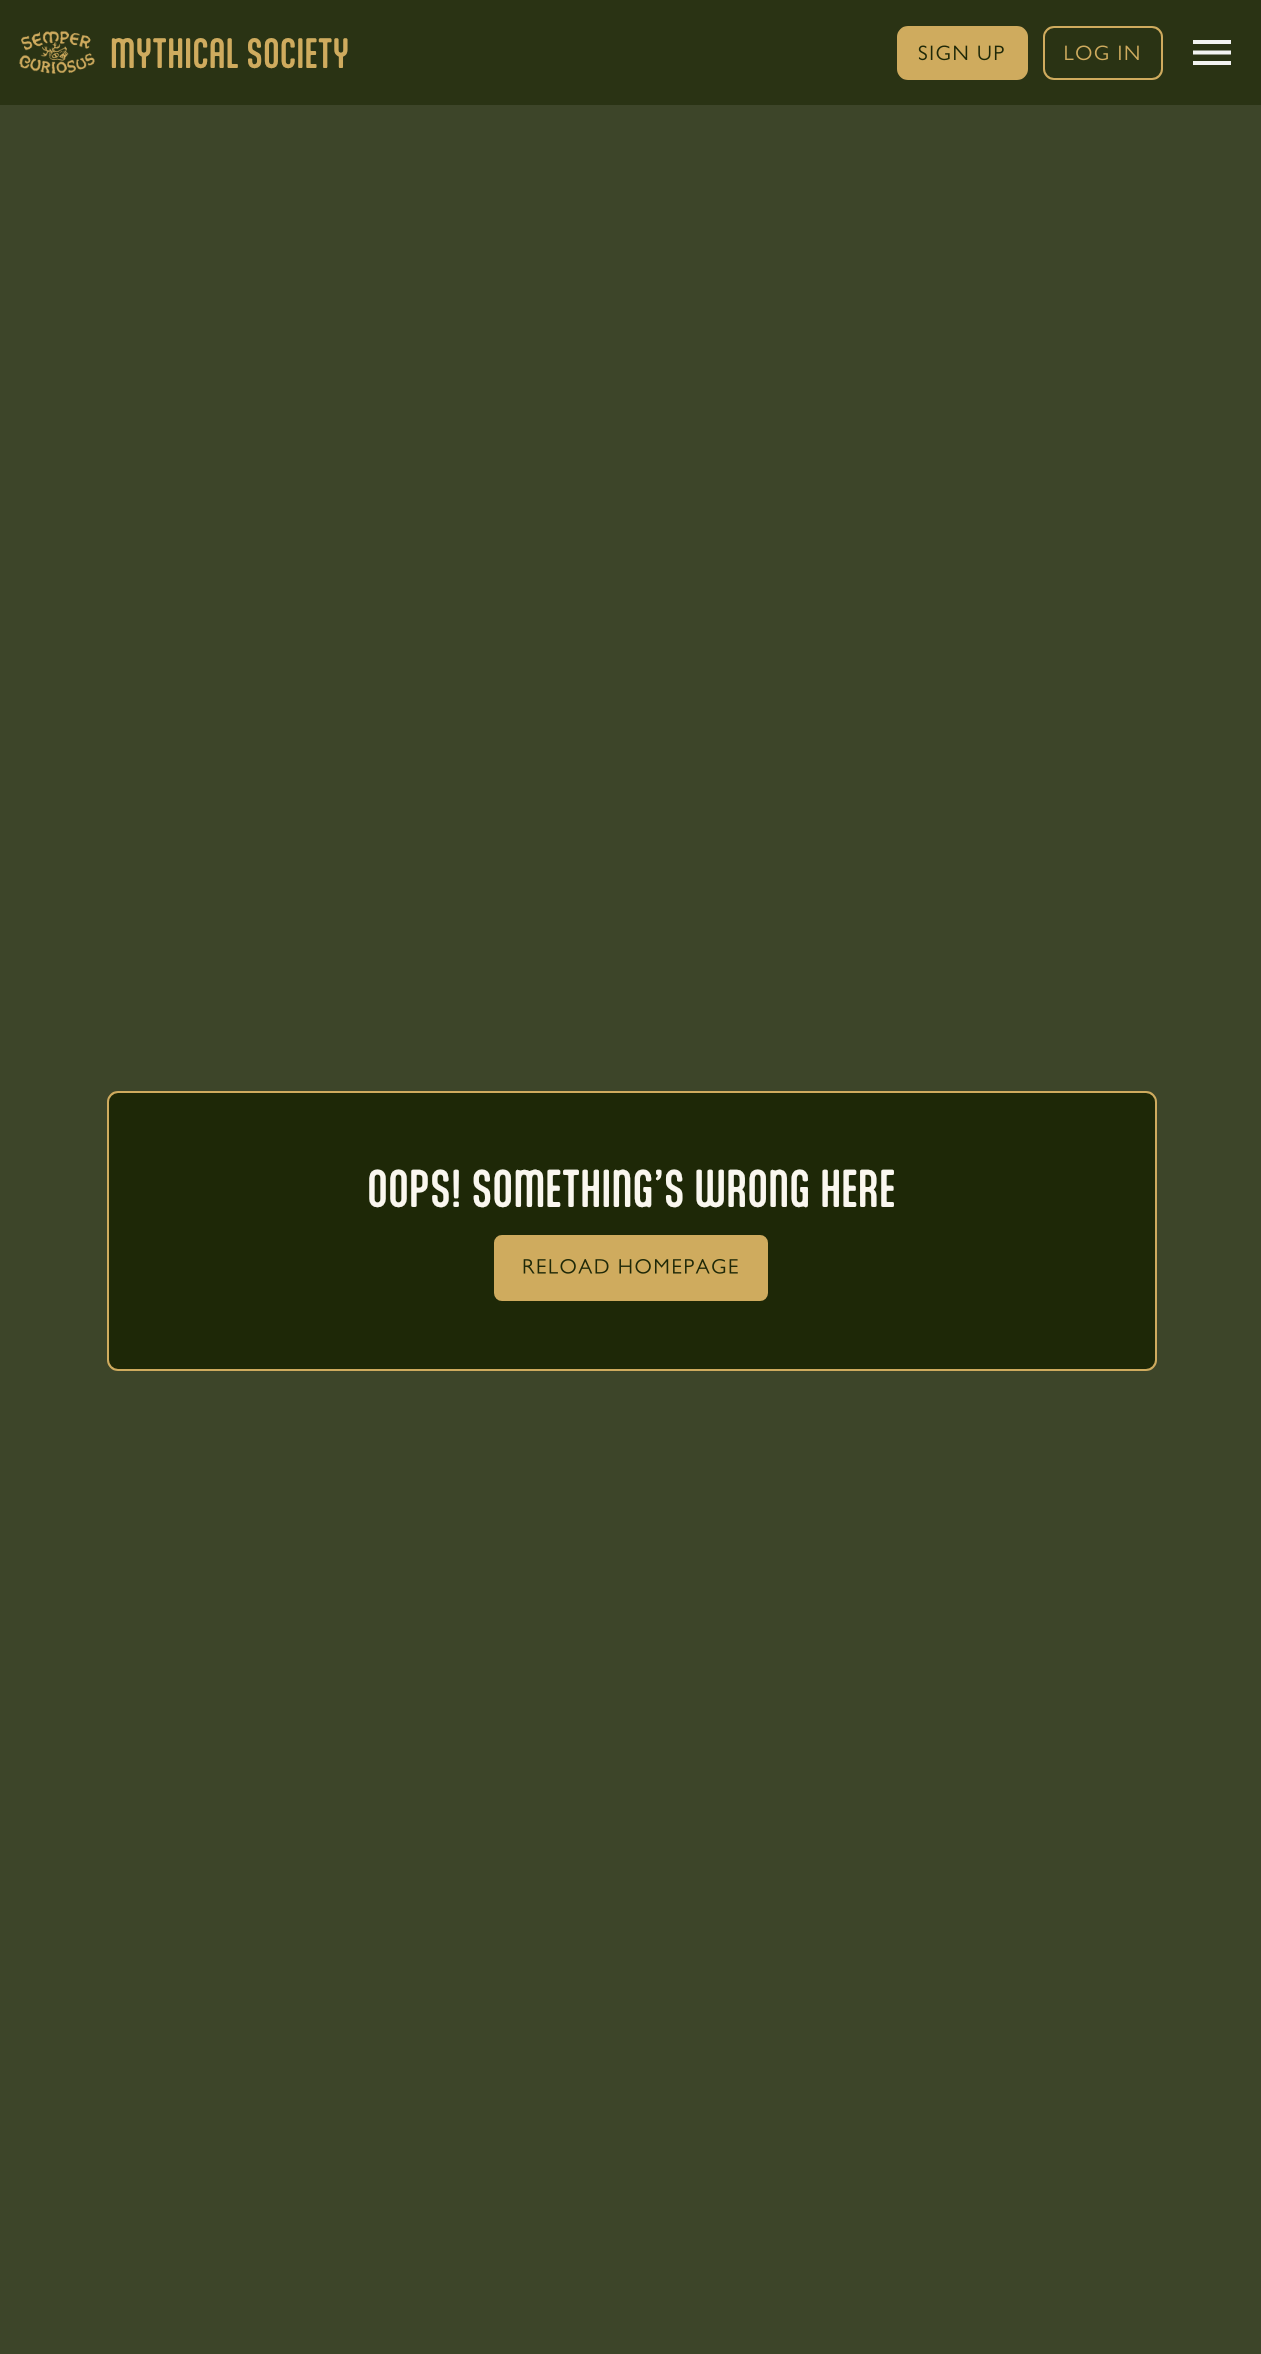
void draw(SkCanvas* canvas) {
    SkPaint paint;
    paint.setAntiAlias(true);
    canvas->clear(0xFF3D4529);
    paint.setColor(0xFF2A3314);
    canvas->drawRect(SkRect::MakeXYWH(0, 0, 1261, 105), paint);
    canvas->drawImageRect(SkImages::DeferredFromEncodedData(SkData::MakeFromFileName("img1.png")), SkRect::MakeXYWH(19, 31, 76, 43), SkSamplingOptions());
    SkFont font1(fontMgr->matchFamilyStyle("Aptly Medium", SkFontStyle(500, SkFontStyle::kNormal_Width, SkFontStyle::kUpright_Slant)), 36);
    font1.setSubpixel(true);
    paint.setColor(0xFFCFAB5E);
    canvas->drawString("MYTHICAL SOCIETY", 110, 68, font1, paint);
    canvas->drawRoundRect(SkRect::MakeXYWH(898, 27, 129, 52), 10, 10, paint);
    paint.setStyle(SkPaint::kStroke_Style);
    paint.setStrokeWidth(2);
    canvas->drawRoundRect(SkRect::MakeXYWH(898, 27, 129, 52), 10, 10, paint);
    canvas->drawImageRect(SkImages::DeferredFromEncodedData(SkData::MakeFromFileName("img2.png")), SkRect::MakeXYWH(918, 45, 86, 16), SkSamplingOptions());
    canvas->drawRoundRect(SkRect::MakeXYWH(1044, 27, 118, 52), 10, 10, paint);
    canvas->drawImageRect(SkImages::DeferredFromEncodedData(SkData::MakeFromFileName("img3.png")), SkRect::MakeXYWH(1065, 45, 74, 16), SkSamplingOptions());
    paint.setStyle(SkPaint::kFill_Style);
    paint.setColor(0xFFF2F3F1);
    canvas->drawPath(SkPathBuilder().moveTo(1193, 65).lineTo(1231, 65).lineTo(1231, 61).lineTo(1193, 61).close().moveTo(1193, 54.5f).lineTo(1231, 54.5f).lineTo(1231, 50.5f).lineTo(1193, 50.5f).close().moveTo(1193, 40).lineTo(1193, 44).lineTo(1231, 44).lineTo(1231, 40).close().detach(), paint);
    paint.setColor(0xFF1E2807);
    canvas->drawRoundRect(SkRect::MakeXYWH(108, 1092, 1048, 278), 10, 10, paint);
    paint.setStyle(SkPaint::kStroke_Style);
    paint.setColor(0xFFCFAB5E);
    canvas->drawRoundRect(SkRect::MakeXYWH(108, 1092, 1048, 278), 10, 10, paint);
    SkFont font2(fontMgr->matchFamilyStyle("Aptly Medium", SkFontStyle(500, SkFontStyle::kNormal_Width, SkFontStyle::kUpright_Slant)), 45);
    font2.setSubpixel(true);
    paint.setStyle(SkPaint::kFill_Style);
    paint.setColor(0xFFFAF7EF);
    canvas->drawString("OOPS! SOMETHING’S WRONG HERE", 367, 1207, font2, paint);
    paint.setColor(0xFFCFAB5E);
    canvas->drawRoundRect(SkRect::MakeXYWH(495, 1236, 272, 64), 7, 7, paint);
    paint.setStyle(SkPaint::kStroke_Style);
    canvas->drawRoundRect(SkRect::MakeXYWH(495, 1236, 272, 64), 7, 7, paint);
    canvas->drawImageRect(SkImages::DeferredFromEncodedData(SkData::MakeFromFileName("img4.png")), SkRect::MakeXYWH(523, 1259, 215, 15), SkSamplingOptions());
}
